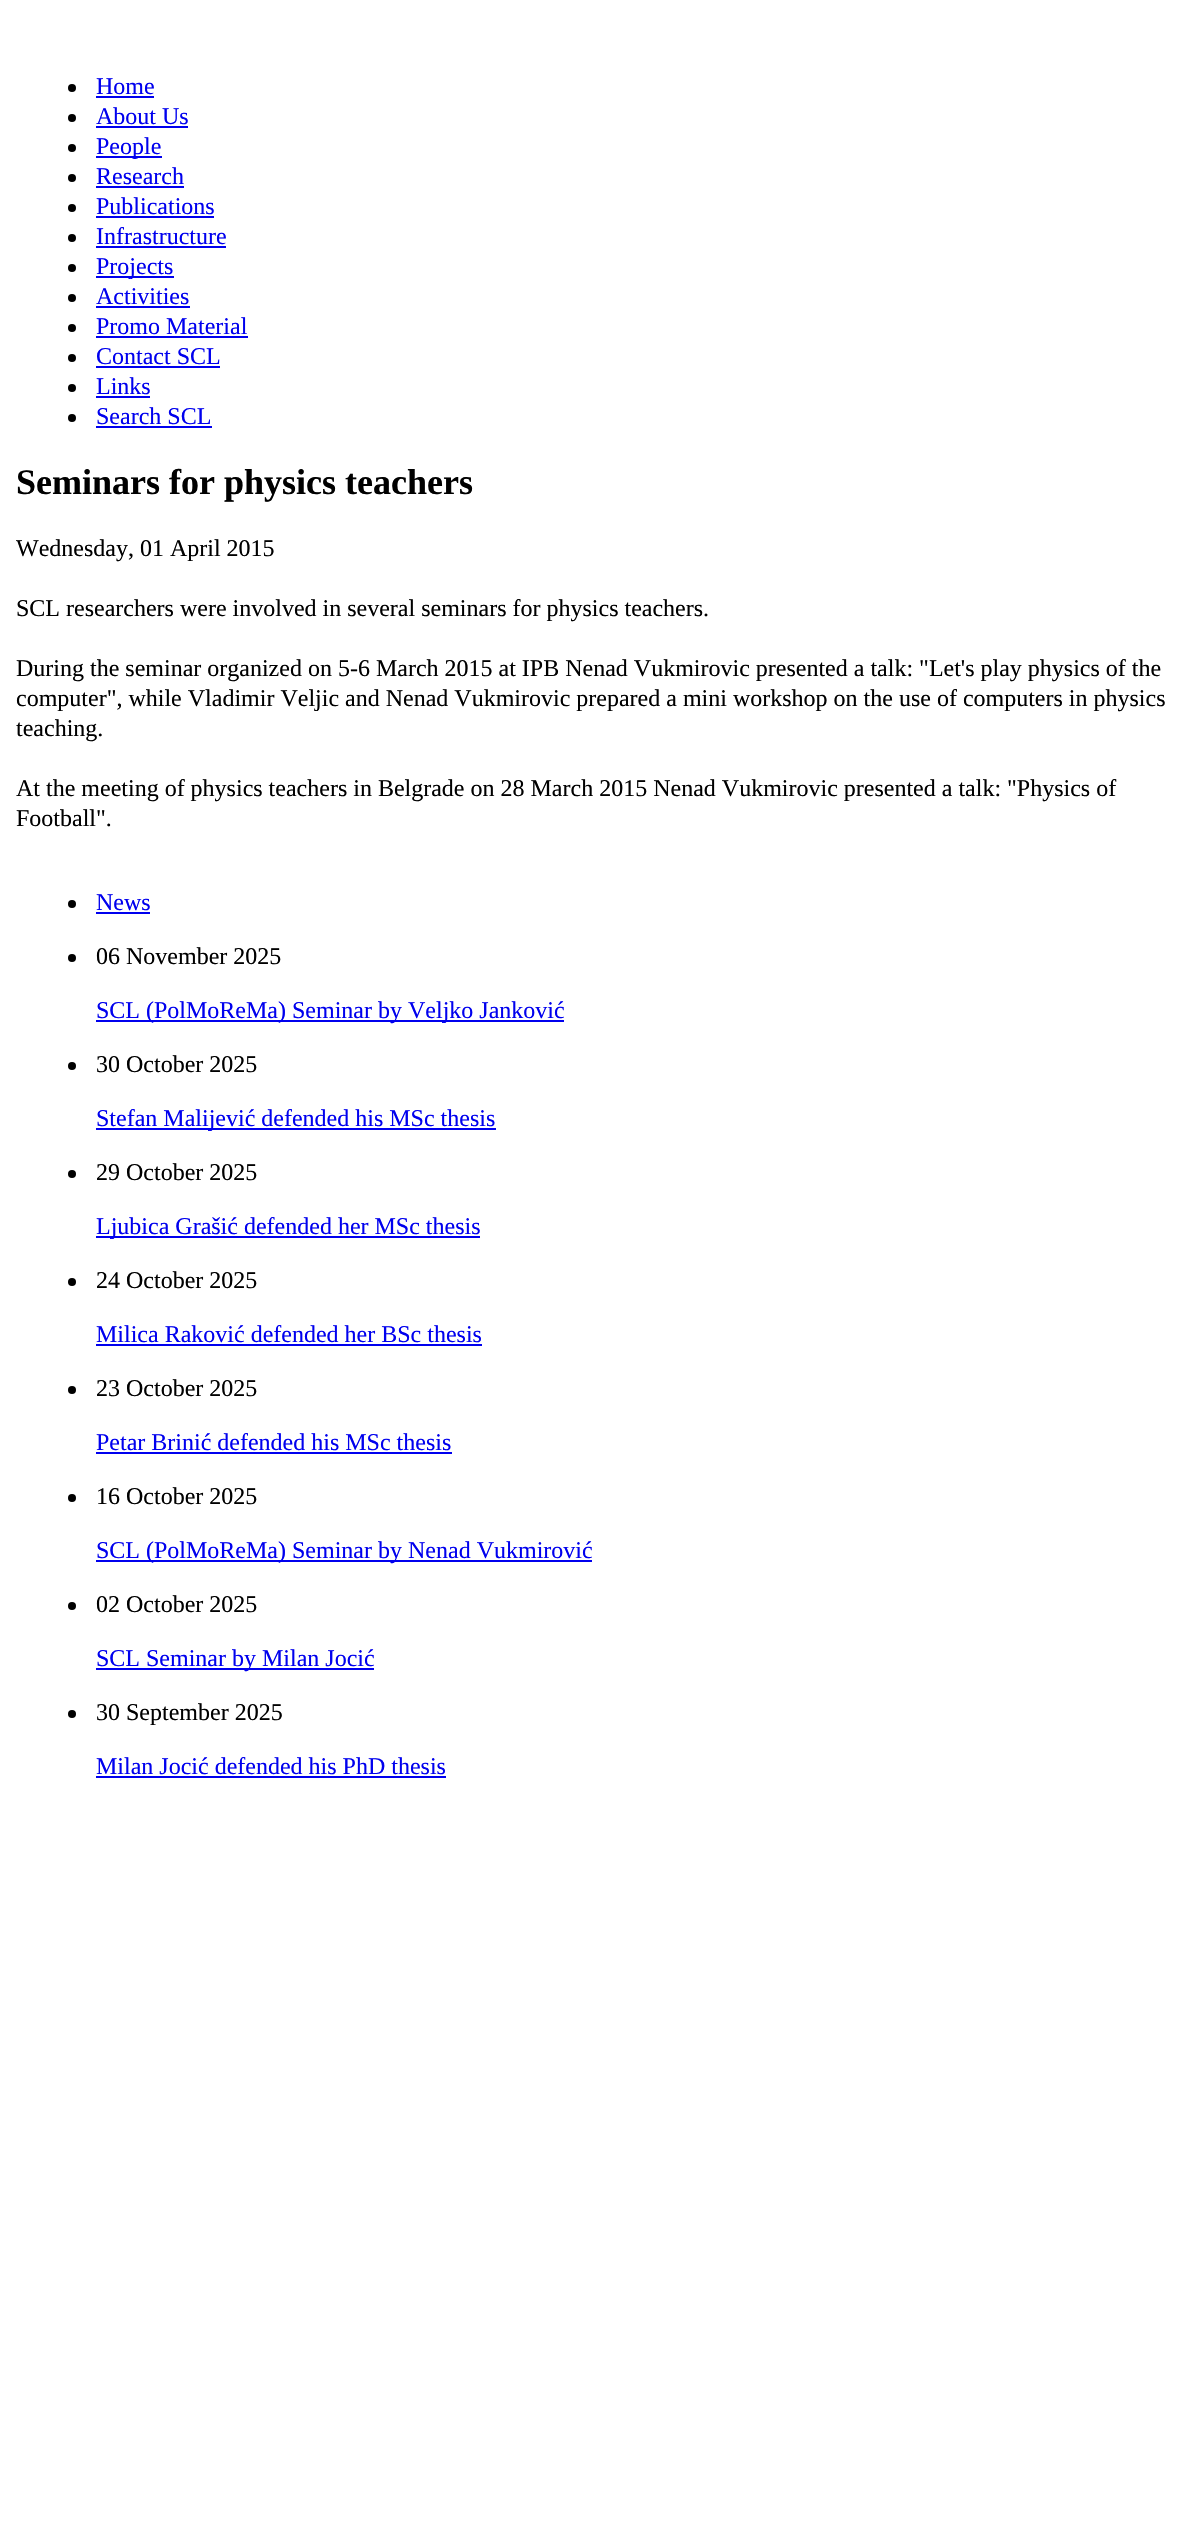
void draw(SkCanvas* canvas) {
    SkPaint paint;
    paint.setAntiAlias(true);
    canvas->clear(0xFFFFFFFF);
    paint.setColor(0xFF000000);
    canvas->drawCircle(72, 88, 4, paint);
    SkFont font1(fontMgr->matchFamilyStyle("Liberation Serif", SkFontStyle::Normal()), 24);
    font1.setSubpixel(true);
    paint.setColor(0xFF0000EE);
    canvas->drawString("Home", 96, 94, font1, paint);
    canvas->drawRect(SkRect::MakeXYWH(96, 96, 58, 2), paint);
    paint.setColor(0xFF000000);
    canvas->drawCircle(72, 118, 4, paint);
    paint.setColor(0xFF0000EE);
    canvas->drawString("About Us", 96, 124, font1, paint);
    canvas->drawRect(SkRect::MakeXYWH(96, 126, 92, 2), paint);
    paint.setColor(0xFF000000);
    canvas->drawCircle(72, 148, 4, paint);
    paint.setColor(0xFF0000EE);
    canvas->drawRect(SkRect::MakeXYWH(96, 156, 66, 2), paint);
    canvas->drawString("People", 96, 154, font1, paint);
    paint.setColor(0xFF000000);
    canvas->drawCircle(72, 178, 4, paint);
    paint.setColor(0xFF0000EE);
    canvas->drawString("Research", 96, 184, font1, paint);
    canvas->drawRect(SkRect::MakeXYWH(96, 186, 88, 2), paint);
    paint.setColor(0xFF000000);
    canvas->drawCircle(72, 208, 4, paint);
    paint.setColor(0xFF0000EE);
    canvas->drawString("Publications", 96, 214, font1, paint);
    canvas->drawRect(SkRect::MakeXYWH(96, 216, 118, 2), paint);
    paint.setColor(0xFF000000);
    canvas->drawCircle(72, 238, 4, paint);
    paint.setColor(0xFF0000EE);
    canvas->drawString("Infrastructure", 96, 244, font1, paint);
    canvas->drawRect(SkRect::MakeXYWH(96, 246, 130, 2), paint);
    paint.setColor(0xFF000000);
    canvas->drawCircle(72, 268, 4, paint);
    paint.setColor(0xFF0000EE);
    canvas->drawRect(SkRect::MakeXYWH(96, 276, 78, 2), paint);
    canvas->drawString("Projects", 96, 274, font1, paint);
    paint.setColor(0xFF000000);
    canvas->drawCircle(72, 298, 4, paint);
    paint.setColor(0xFF0000EE);
    canvas->drawString("Activities", 96, 304, font1, paint);
    canvas->drawRect(SkRect::MakeXYWH(96, 306, 94, 2), paint);
    paint.setColor(0xFF000000);
    canvas->drawCircle(72, 328, 4, paint);
    paint.setColor(0xFF0000EE);
    canvas->drawString("Promo Material", 96, 334, font1, paint);
    canvas->drawRect(SkRect::MakeXYWH(96, 336, 152, 2), paint);
    paint.setColor(0xFF000000);
    canvas->drawCircle(72, 358, 4, paint);
    paint.setColor(0xFF0000EE);
    canvas->drawString("Contact SCL", 96, 364, font1, paint);
    canvas->drawRect(SkRect::MakeXYWH(96, 366, 124, 2), paint);
    paint.setColor(0xFF000000);
    canvas->drawCircle(72, 388, 4, paint);
    paint.setColor(0xFF0000EE);
    canvas->drawString("Links", 96, 394, font1, paint);
    canvas->drawRect(SkRect::MakeXYWH(96, 396, 54, 2), paint);
    paint.setColor(0xFF000000);
    canvas->drawCircle(72, 418, 4, paint);
    paint.setColor(0xFF0000EE);
    canvas->drawString("Search SCL", 96, 424, font1, paint);
    canvas->drawRect(SkRect::MakeXYWH(96, 426, 116, 2), paint);
    SkFont font2(fontMgr->matchFamilyStyle("Liberation Serif", SkFontStyle::Bold()), 36);
    font2.setSubpixel(true);
    paint.setColor(0xFF000000);
    canvas->drawString("Seminars for physics teachers", 16, 494, font2, paint);
    canvas->drawString("Wednesday, 01 April 2015", 16, 556, font1, paint);
    canvas->drawString("SCL researchers were involved in several seminars for physics teachers.", 16, 616, font1, paint);
    canvas->drawString("During the seminar organized on 5-6 March 2015 at IPB Nenad Vukmirovic presented a talk: \"Let's play physics of the", 16, 676, font1, paint);
    canvas->drawString("computer\", while Vladimir Veljic and Nenad Vukmirovic prepared a mini workshop on the use of computers in physics", 16, 706, font1, paint);
    canvas->drawString("teaching.", 16, 736, font1, paint);
    canvas->drawString("At the meeting of physics teachers in Belgrade on 28 March 2015 Nenad Vukmirovic presented a talk: \"Physics of", 16, 796, font1, paint);
    canvas->drawString("Football\".", 16, 826, font1, paint);
    canvas->drawCircle(72, 904, 4, paint);
    paint.setColor(0xFF0000EE);
    canvas->drawString("News", 96, 910, font1, paint);
    canvas->drawRect(SkRect::MakeXYWH(96, 912, 54, 2), paint);
    paint.setColor(0xFF000000);
    canvas->drawCircle(72, 958, 4, paint);
    canvas->drawString("06 November 2025", 96, 964, font1, paint);
    paint.setColor(0xFF0000EE);
    canvas->drawRect(SkRect::MakeXYWH(96, 1020, 468, 2), paint);
    canvas->drawString("SCL (PolMoReMa) Seminar by Veljko Janković", 96, 1018, font1, paint);
    paint.setColor(0xFF000000);
    canvas->drawCircle(72, 1066, 4, paint);
    canvas->drawString("30 October 2025", 96, 1072, font1, paint);
    paint.setColor(0xFF0000EE);
    canvas->drawRect(SkRect::MakeXYWH(96, 1128, 400, 2), paint);
    canvas->drawString("Stefan Malijević defended his MSc thesis", 96, 1126, font1, paint);
    paint.setColor(0xFF000000);
    canvas->drawCircle(72, 1174, 4, paint);
    canvas->drawString("29 October 2025", 96, 1180, font1, paint);
    paint.setColor(0xFF0000EE);
    canvas->drawRect(SkRect::MakeXYWH(96, 1236, 384, 2), paint);
    canvas->drawString("Ljubica Grašić defended her MSc thesis", 96, 1234, font1, paint);
    paint.setColor(0xFF000000);
    canvas->drawCircle(72, 1282, 4, paint);
    canvas->drawString("24 October 2025", 96, 1288, font1, paint);
    paint.setColor(0xFF0000EE);
    canvas->drawString("Milica Raković defended her BSc thesis", 96, 1342, font1, paint);
    canvas->drawRect(SkRect::MakeXYWH(96, 1344, 386, 2), paint);
    paint.setColor(0xFF000000);
    canvas->drawCircle(72, 1390, 4, paint);
    canvas->drawString("23 October 2025", 96, 1396, font1, paint);
    paint.setColor(0xFF0000EE);
    canvas->drawString("Petar Brinić defended his MSc thesis", 96, 1450, font1, paint);
    canvas->drawRect(SkRect::MakeXYWH(96, 1452, 356, 2), paint);
    paint.setColor(0xFF000000);
    canvas->drawCircle(72, 1498, 4, paint);
    canvas->drawString("16 October 2025", 96, 1504, font1, paint);
    paint.setColor(0xFF0000EE);
    canvas->drawRect(SkRect::MakeXYWH(96, 1560, 496, 2), paint);
    canvas->drawString("SCL (PolMoReMa) Seminar by Nenad Vukmirović", 96, 1558, font1, paint);
    paint.setColor(0xFF000000);
    canvas->drawCircle(72, 1606, 4, paint);
    canvas->drawString("02 October 2025", 96, 1612, font1, paint);
    paint.setColor(0xFF0000EE);
    canvas->drawRect(SkRect::MakeXYWH(96, 1668, 278, 2), paint);
    canvas->drawString("SCL Seminar by Milan Jocić", 96, 1666, font1, paint);
    paint.setColor(0xFF000000);
    canvas->drawCircle(72, 1714, 4, paint);
    canvas->drawString("30 September 2025", 96, 1720, font1, paint);
    paint.setColor(0xFF0000EE);
    canvas->drawString("Milan Jocić defended his PhD thesis", 96, 1774, font1, paint);
    canvas->drawRect(SkRect::MakeXYWH(96, 1776, 350, 2), paint);
}
